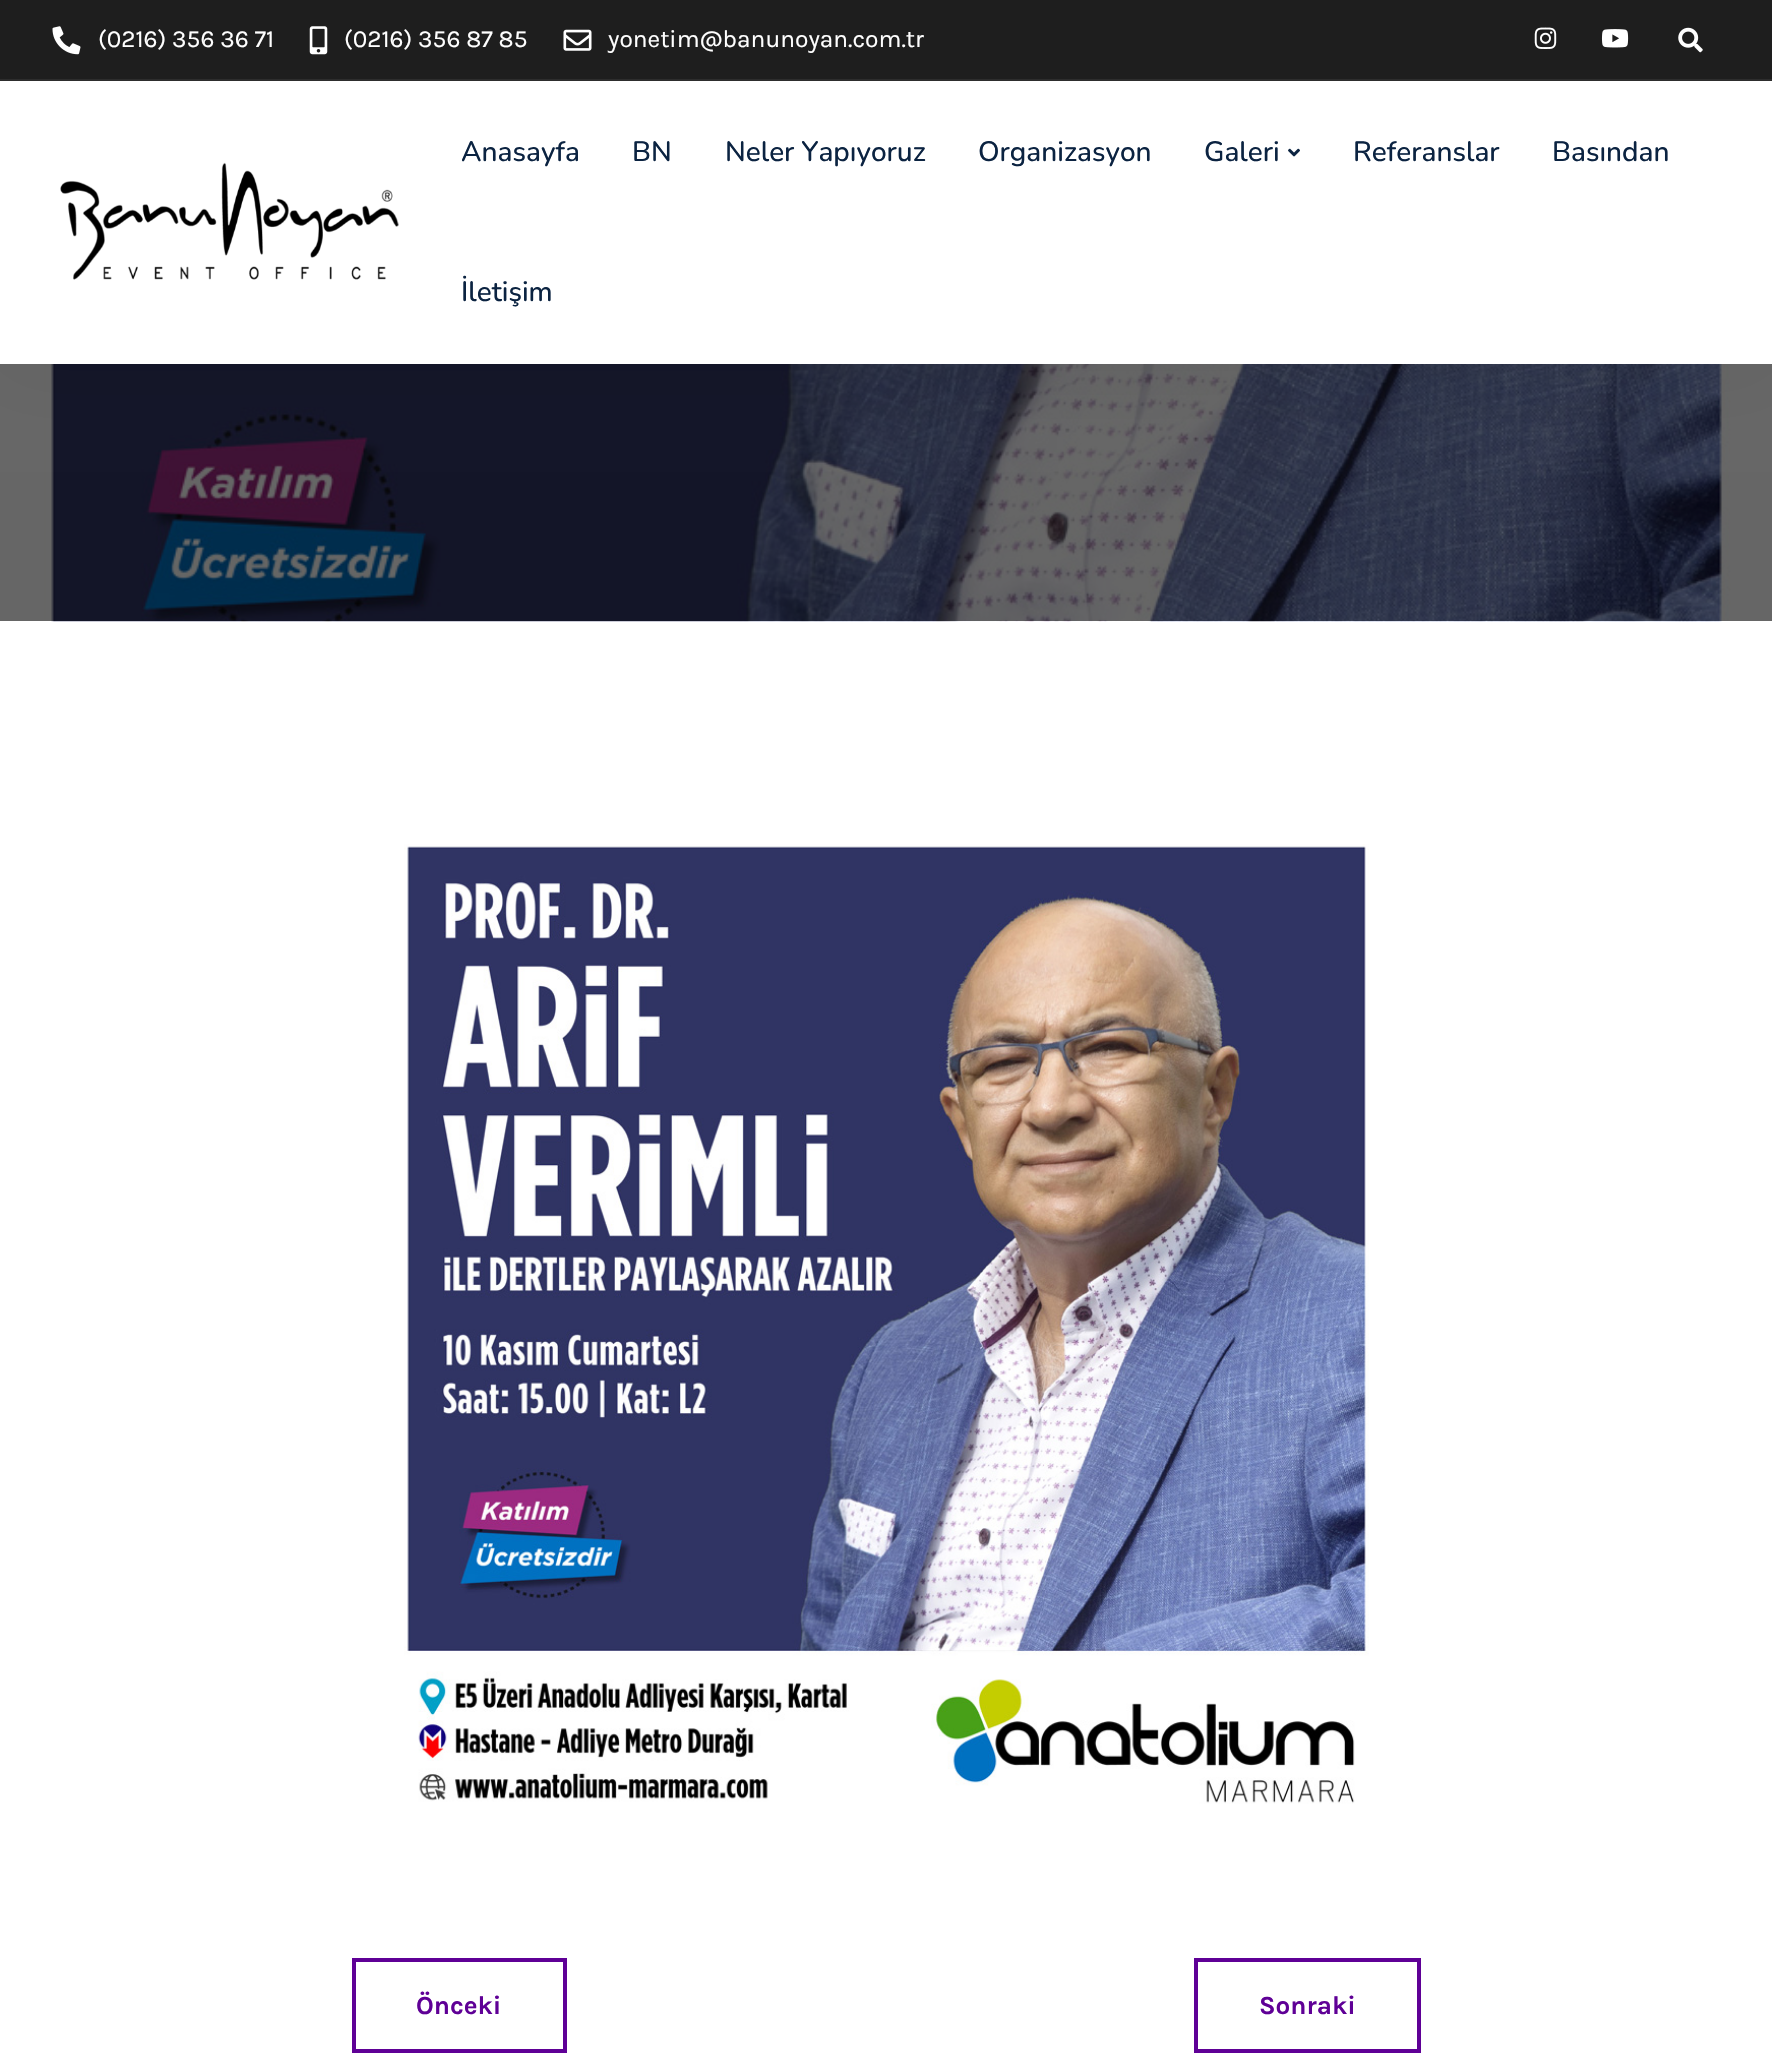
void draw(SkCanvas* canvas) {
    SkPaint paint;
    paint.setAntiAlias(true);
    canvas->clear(0xFFFFFFFF);
    canvas->drawImageRect(SkImages::DeferredFromEncodedData(SkData::MakeFromFileName("img9.png")), SkRect::MakeXYWH(0, 364, 1772, 258), SkSamplingOptions());
    paint.setColor(0x0D0F0F0F);
    paint.setMaskFilter(SkMaskFilter::MakeBlur(kNormal_SkBlurStyle, 35));
    canvas->drawRect(SkRect::MakeXYWH(0, 4, 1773, 364), paint);
    paint.setMaskFilter(nullptr);
    paint.setColor(0xFFFFFFFF);
    canvas->drawRect(SkRect::MakeXYWH(0, 81, 1772, 283), paint);
    paint.setColor(0xFF1E1E1E);
    canvas->drawRect(SkRect::MakeXYWH(0, 0, 1772, 79), paint);
    paint.setColor(0xFF2D2D2D);
    canvas->drawRect(SkRect::MakeXYWH(0, 79, 1772, 2), paint);
    canvas->drawImageRect(SkImages::DeferredFromEncodedData(SkData::MakeFromFileName("img1.png")), SkRect::MakeXYWH(52, 26, 29, 29), SkSamplingOptions());
    SkFont font1(fontMgr->matchFamilyStyle("Karla", SkFontStyle::Normal()), 24.5f);
    font1.setSubpixel(true);
    paint.setColor(0xFFFFFFFF);
    canvas->drawString("(0216) 356 36 71", 98, 47, font1, paint);
    canvas->drawImageRect(SkImages::DeferredFromEncodedData(SkData::MakeFromFileName("img2.png")), SkRect::MakeXYWH(309, 26, 19, 29), SkSamplingOptions());
    canvas->drawString("(0216) 356 87 85", 344, 47, font1, paint);
    canvas->drawImageRect(SkImages::DeferredFromEncodedData(SkData::MakeFromFileName("img3.png")), SkRect::MakeXYWH(563, 29, 29, 22), SkSamplingOptions());
    canvas->drawString("yonetim@banunoyan.com.tr", 608, 47, font1, paint);
    canvas->drawImageRect(SkImages::DeferredFromEncodedData(SkData::MakeFromFileName("img4.png")), SkRect::MakeXYWH(1534, 27, 23, 22), SkSamplingOptions());
    canvas->drawImageRect(SkImages::DeferredFromEncodedData(SkData::MakeFromFileName("img5.png")), SkRect::MakeXYWH(1601, 29, 28, 19), SkSamplingOptions());
    canvas->drawImageRect(SkImages::DeferredFromEncodedData(SkData::MakeFromFileName("img6.png")), SkRect::MakeXYWH(1678, 27, 25, 26), SkSamplingOptions());
    canvas->drawImageRect(SkImages::DeferredFromEncodedData(SkData::MakeFromFileName("img7.png")), SkRect::MakeXYWH(60, 162, 339, 118), SkSamplingOptions());
    SkFont font2(fontMgr->matchFamilyStyle("Nunito", SkFontStyle(200, SkFontStyle::kNormal_Width, SkFontStyle::kUpright_Slant)), 28);
    font2.setSubpixel(true);
    paint.setColor(0xFF0B2341);
    canvas->drawString("Anasayfa", 461, 161, font2, paint);
    canvas->drawString("BN", 632, 161, font2, paint);
    canvas->drawString("Neler Yapıyoruz", 725, 161, font2, paint);
    canvas->drawString("Organizasyon", 978, 161, font2, paint);
    canvas->drawString("Galeri", 1204, 161, font2, paint);
    canvas->drawImageRect(SkImages::DeferredFromEncodedData(SkData::MakeFromFileName("img8.png")), SkRect::MakeXYWH(1288, 148, 12, 9), SkSamplingOptions());
    canvas->drawString("Referanslar", 1353, 161, font2, paint);
    canvas->drawString("Basından", 1552, 161, font2, paint);
    canvas->drawString("İletişim", 461, 301, font2, paint);
    canvas->drawImageRect(SkImages::DeferredFromEncodedData(SkData::MakeFromFileName("img10.png")), SkRect::MakeXYWH(404, 844, 965, 960), SkSamplingOptions());
    paint.setStyle(SkPaint::kStroke_Style);
    paint.setStrokeWidth(4);
    paint.setColor(0xFF5F0096);
    canvas->drawRect(SkRect::MakeXYWH(354, 1960, 211, 91), paint);
    SkFont font3(fontMgr->matchFamilyStyle("Karla", SkFontStyle::Bold()), 26);
    font3.setSubpixel(true);
    paint.setStyle(SkPaint::kFill_Style);
    canvas->drawString("Önceki", 416, 2014, font3, paint);
    paint.setStyle(SkPaint::kStroke_Style);
    canvas->drawRect(SkRect::MakeXYWH(1196, 1960, 223, 91), paint);
    paint.setStyle(SkPaint::kFill_Style);
    canvas->drawString("Sonraki", 1259, 2014, font3, paint);
}
